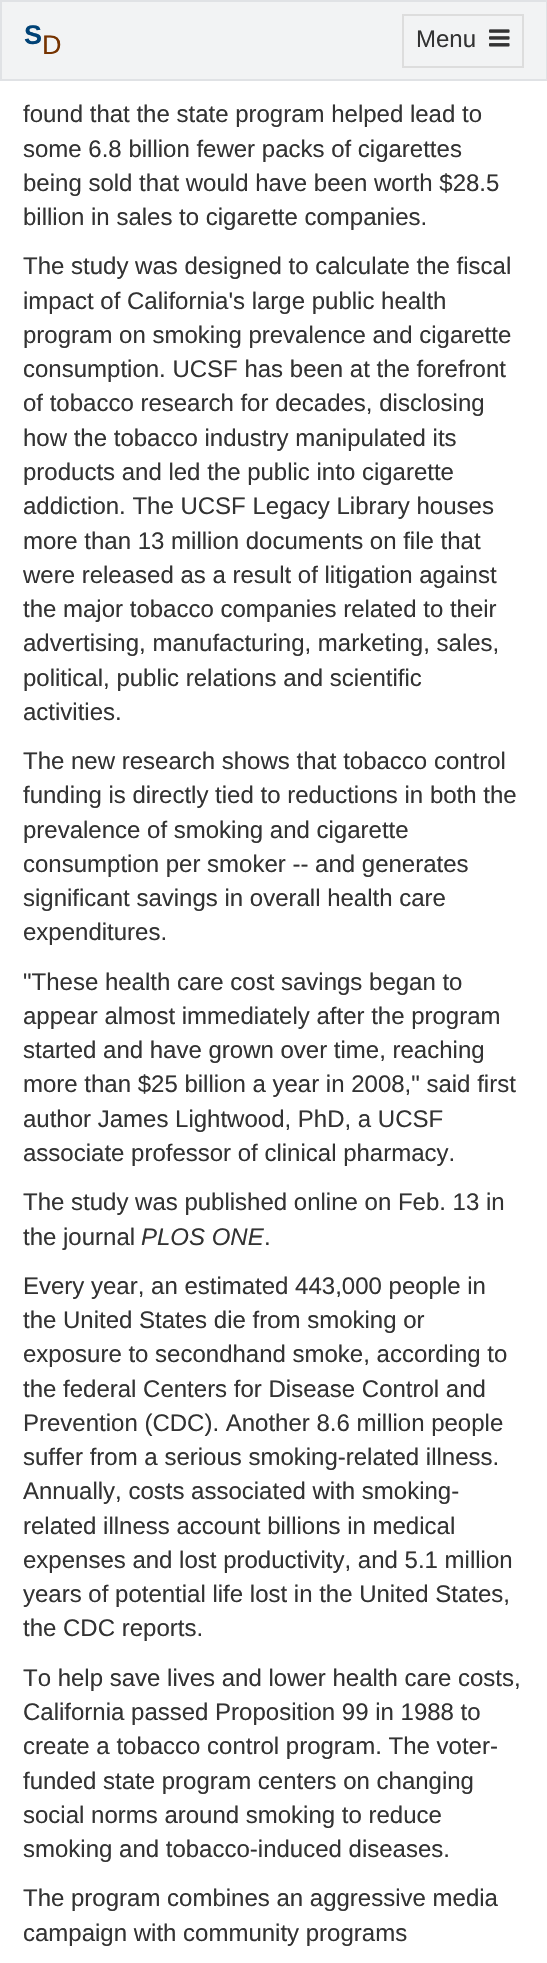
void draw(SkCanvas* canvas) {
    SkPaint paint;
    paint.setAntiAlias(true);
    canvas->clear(0xFFFFFFFF);
    paint.setColor(0xFFF2F3F4);
    canvas->drawRect(SkRect::MakeXYWH(1, 1, 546, 79), paint);
    paint.setStyle(SkPaint::kStroke_Style);
    paint.setStrokeWidth(2);
    paint.setColor(0xFFE0E2E5);
    canvas->drawRect(SkRect::MakeXYWH(1, 1, 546, 79), paint);
    SkFont font1(fontMgr->matchFamilyStyle("Liberation Sans", SkFontStyle::Bold()), 27);
    font1.setSubpixel(true);
    paint.setStyle(SkPaint::kFill_Style);
    paint.setColor(0xFF004276);
    canvas->drawString("S", 24, 44, font1, paint);
    SkFont font2(fontMgr->matchFamilyStyle("Liberation Sans", SkFontStyle::Normal()), 27);
    font2.setSubpixel(true);
    paint.setColor(0xFF763300);
    canvas->drawString("D", 42, 54, font2, paint);
    paint.setStyle(SkPaint::kStroke_Style);
    paint.setColor(0xFFDDDDDD);
    canvas->drawRect(SkRect::MakeXYWH(403, 15, 120, 52), paint);
    SkFont font3(fontMgr->matchFamilyStyle("Liberation Sans", SkFontStyle::Normal()), 24);
    font3.setSubpixel(true);
    paint.setStyle(SkPaint::kFill_Style);
    paint.setColor(0xFF333333);
    canvas->drawString("Menu", 416, 47, font3, paint);
    canvas->drawImageRect(SkImages::DeferredFromEncodedData(SkData::MakeFromFileName("img1.png")), SkRect::MakeXYWH(489, 29, 21, 18), SkSamplingOptions());
    canvas->drawString("found that the state program helped lead to", 23, 122, font3, paint);
    canvas->drawString("some 6.8 billion fewer packs of cigarettes", 23, 157, font3, paint);
    canvas->drawString("being sold that would have been worth $28.5", 23, 191, font3, paint);
    canvas->drawString("billion in sales to cigarette companies.", 23, 225, font3, paint);
    canvas->drawString("The study was designed to calculate the fiscal", 23, 274, font3, paint);
    canvas->drawString("impact of California's large public health", 23, 309, font3, paint);
    canvas->drawString("program on smoking prevalence and cigarette", 23, 343, font3, paint);
    canvas->drawString("consumption. UCSF has been at the forefront", 23, 377, font3, paint);
    canvas->drawString("of tobacco research for decades, disclosing", 23, 411, font3, paint);
    canvas->drawString("how the tobacco industry manipulated its", 23, 446, font3, paint);
    canvas->drawString("products and led the public into cigarette", 23, 480, font3, paint);
    canvas->drawString("addiction. The UCSF Legacy Library houses", 23, 514, font3, paint);
    canvas->drawString("more than 13 million documents on file that", 23, 549, font3, paint);
    canvas->drawString("were released as a result of litigation against", 23, 583, font3, paint);
    canvas->drawString("the major tobacco companies related to their", 23, 617, font3, paint);
    canvas->drawString("advertising, manufacturing, marketing, sales,", 23, 651, font3, paint);
    canvas->drawString("political, public relations and scientific", 23, 686, font3, paint);
    canvas->drawString("activities.", 23, 720, font3, paint);
    canvas->drawString("The new research shows that tobacco control", 23, 769, font3, paint);
    canvas->drawString("funding is directly tied to reductions in both the", 23, 803, font3, paint);
    canvas->drawString("prevalence of smoking and cigarette", 23, 838, font3, paint);
    canvas->drawString("consumption per smoker -- and generates", 23, 872, font3, paint);
    canvas->drawString("significant savings in overall health care", 23, 906, font3, paint);
    canvas->drawString("expenditures.", 23, 940, font3, paint);
    canvas->drawString("\"These health care cost savings began to", 23, 990, font3, paint);
    canvas->drawString("appear almost immediately after the program", 23, 1024, font3, paint);
    canvas->drawString("started and have grown over time, reaching", 23, 1058, font3, paint);
    canvas->drawString("more than $25 billion a year in 2008,\" said first", 23, 1092, font3, paint);
    canvas->drawString("author James Lightwood, PhD, a UCSF", 23, 1127, font3, paint);
    canvas->drawString("associate professor of clinical pharmacy.", 23, 1161, font3, paint);
    canvas->drawString("The study was published online on Feb. 13 in", 23, 1210, font3, paint);
    canvas->drawString("the journal", 23, 1245, font3, paint);
    SkFont font4(fontMgr->matchFamilyStyle("Liberation Sans", SkFontStyle::Italic()), 24);
    font4.setSubpixel(true);
    canvas->drawString("PLOS ONE", 141, 1245, font4, paint);
    canvas->drawString(".", 264, 1245, font3, paint);
    canvas->drawString("Every year, an estimated 443,000 people in", 23, 1294, font3, paint);
    canvas->drawString("the United States die from smoking or", 23, 1328, font3, paint);
    canvas->drawString("exposure to secondhand smoke, according to", 23, 1362, font3, paint);
    canvas->drawString("the federal Centers for Disease Control and", 23, 1397, font3, paint);
    canvas->drawString("Prevention (CDC). Another 8.6 million people", 23, 1431, font3, paint);
    canvas->drawString("suffer from a serious smoking-related illness.", 23, 1465, font3, paint);
    canvas->drawString("Annually, costs associated with smoking-", 23, 1499, font3, paint);
    canvas->drawString("related illness account billions in medical", 23, 1534, font3, paint);
    canvas->drawString("expenses and lost productivity, and 5.1 million", 23, 1568, font3, paint);
    canvas->drawString("years of potential life lost in the United States,", 23, 1602, font3, paint);
    canvas->drawString("the CDC reports.", 23, 1636, font3, paint);
    canvas->drawString("To help save lives and lower health care costs,", 23, 1686, font3, paint);
    canvas->drawString("California passed Proposition 99 in 1988 to", 23, 1720, font3, paint);
    canvas->drawString("create a tobacco control program. The voter-", 23, 1754, font3, paint);
    canvas->drawString("funded state program centers on changing", 23, 1789, font3, paint);
    canvas->drawString("social norms around smoking to reduce", 23, 1823, font3, paint);
    canvas->drawString("smoking and tobacco-induced diseases.", 23, 1857, font3, paint);
    canvas->drawString("The program combines an aggressive media", 23, 1906, font3, paint);
    canvas->drawString("campaign with community programs", 23, 1941, font3, paint);
}
